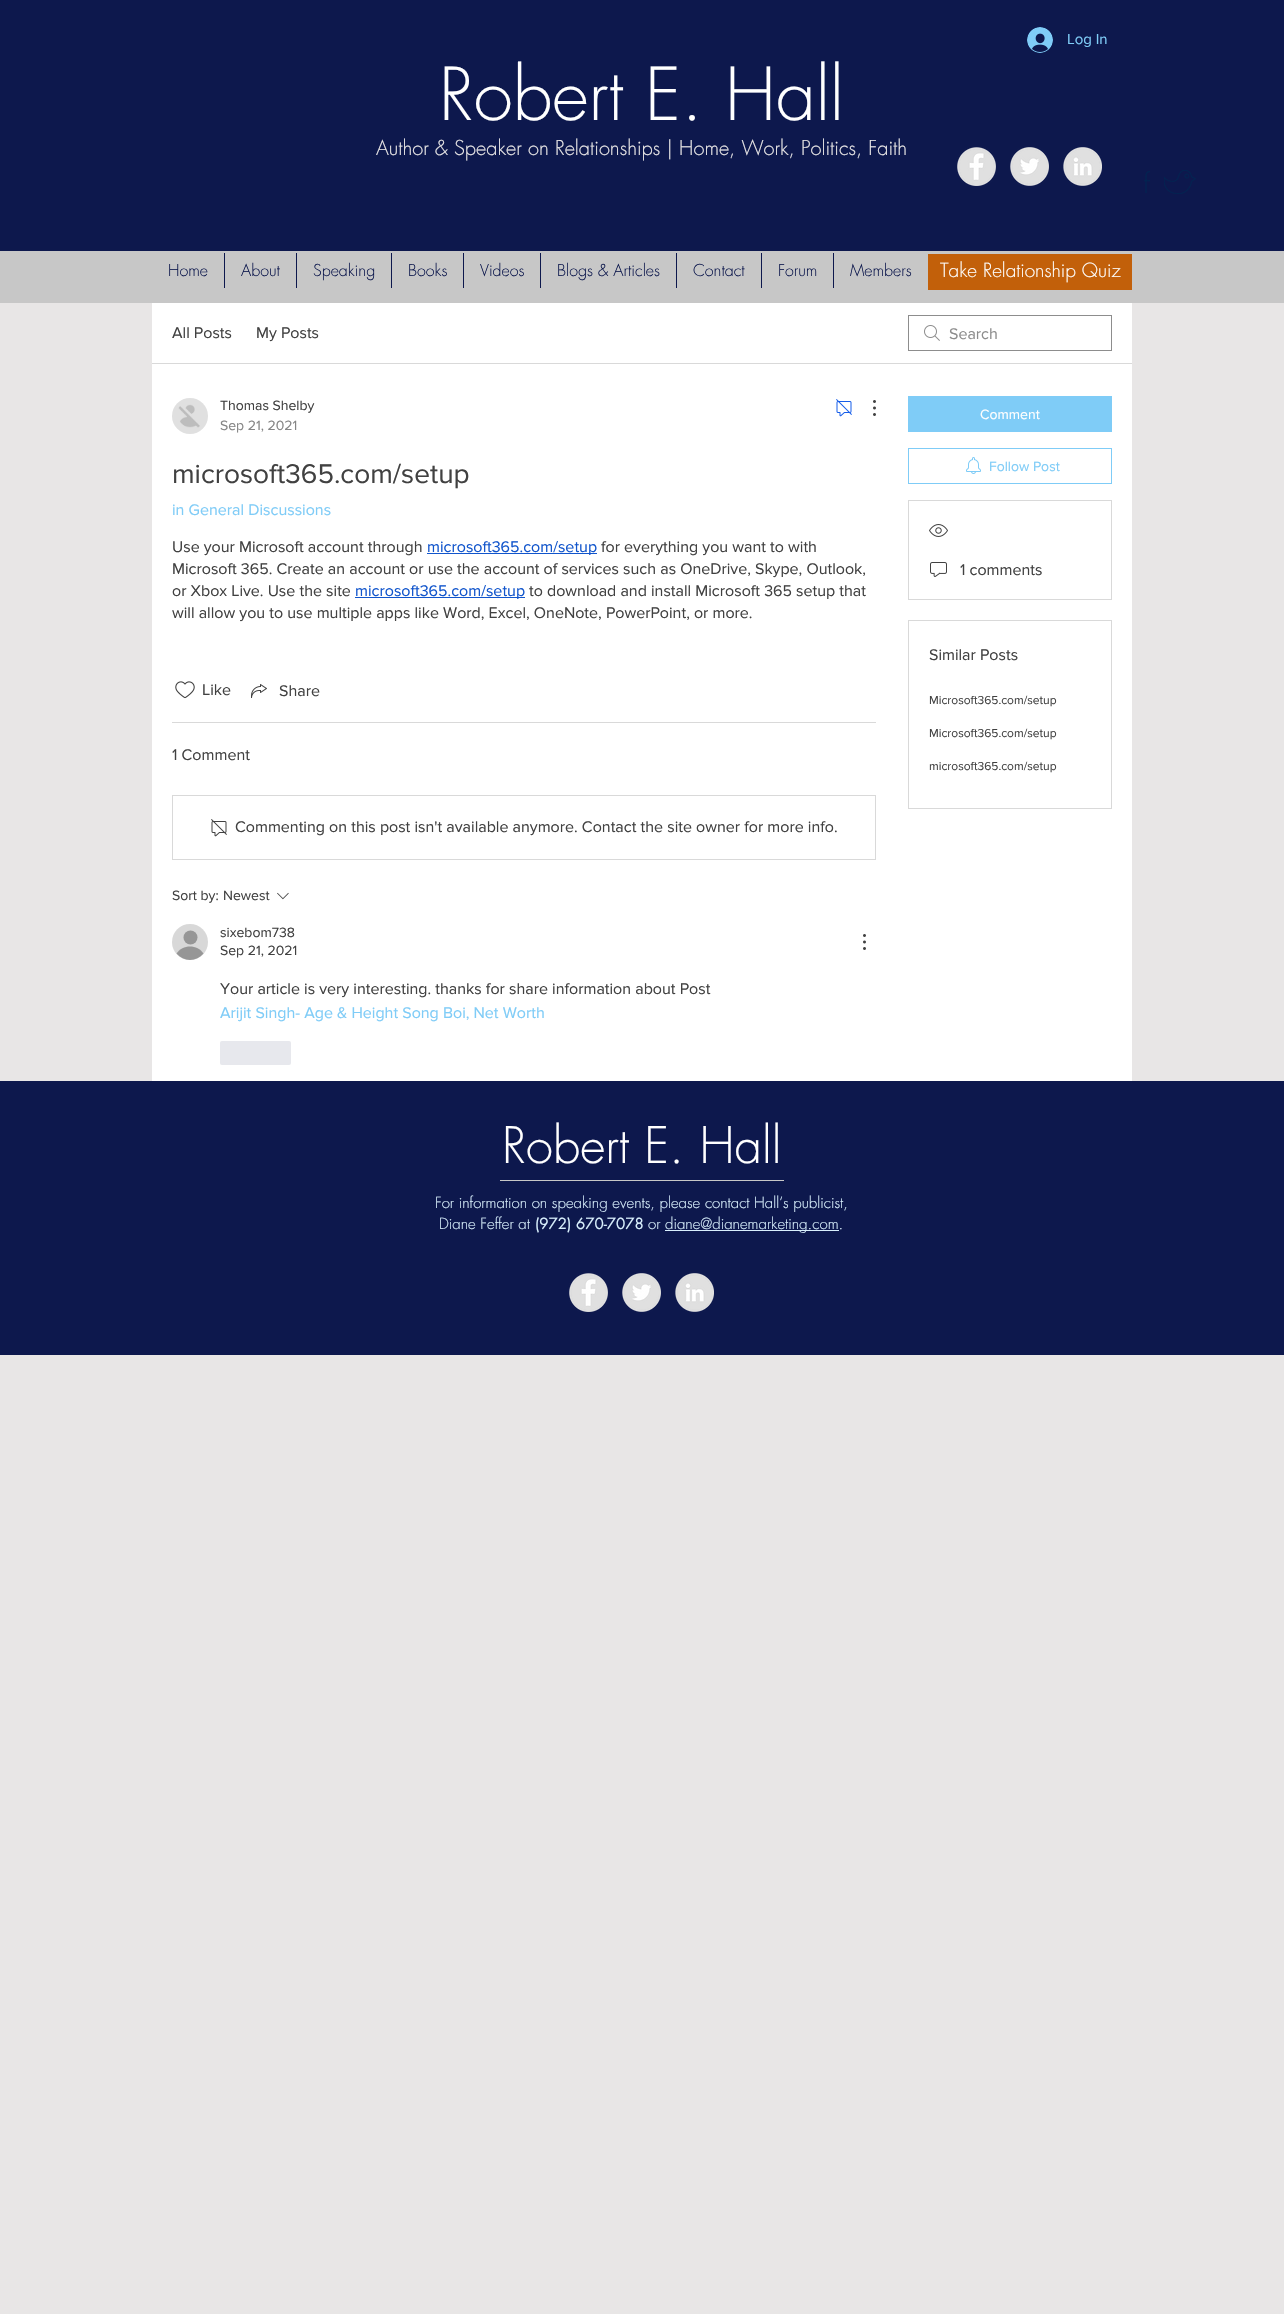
void draw(SkCanvas* canvas) {
    SkPaint paint;
    paint.setAntiAlias(true);
    canvas->clear(0xFFE8E6E6);
    paint.setColor(0xFF0D184D);
    canvas->drawRect(SkRect::MakeXYWH(0, 0, 1284, 251), paint);
    canvas->drawImageRect(SkImages::DeferredFromEncodedData(SkData::MakeFromFileName("img1.png")), SkRect::MakeXYWH(1027, 27, 26, 26), SkSamplingOptions());
    SkFont font1(fontMgr->matchFamilyStyle("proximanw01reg", SkFontStyle::Normal()), 15);
    font1.setSubpixel(true);
    paint.setColor(0xFF7FCCF7);
    canvas->drawString("Log In", 1067, 44, font1, paint);
    SkFont font2(fontMgr->matchFamilyStyle("futura", SkFontStyle(300, SkFontStyle::kNormal_Width, SkFontStyle::kUpright_Slant)), 71);
    font2.setSubpixel(true);
    paint.setColor(0xFFFFFFFF);
    canvas->drawString("Robert E. Hall", 439, 120, font2, paint);
    SkFont font3(fontMgr->matchFamilyStyle("futura", SkFontStyle(300, SkFontStyle::kNormal_Width, SkFontStyle::kUpright_Slant)), 20);
    font3.setSubpixel(true);
    paint.setColor(0xFFE8E6E6);
    canvas->drawString("Author & Speaker on Relationships | Home, Work, Politics, Faith", 376, 155, font3, paint);
    canvas->drawImageRect(SkImages::DeferredFromEncodedData(SkData::MakeFromFileName("img2.png")), SkRect::MakeXYWH(957, 147, 39, 39), SkSamplingOptions());
    canvas->drawImageRect(SkImages::DeferredFromEncodedData(SkData::MakeFromFileName("img3.png")), SkRect::MakeXYWH(1010, 147, 39, 39), SkSamplingOptions());
    canvas->drawImageRect(SkImages::DeferredFromEncodedData(SkData::MakeFromFileName("img4.png")), SkRect::MakeXYWH(1063, 147, 39, 39), SkSamplingOptions());
    canvas->drawImageRect(SkImages::DeferredFromEncodedData(SkData::MakeFromFileName("img5.png")), SkRect::MakeXYWH(1144, 171, 6, 22), SkSamplingOptions());
    canvas->drawImageRect(SkImages::DeferredFromEncodedData(SkData::MakeFromFileName("img6.png")), SkRect::MakeXYWH(1164, 170, 32, 24), SkSamplingOptions());
    paint.setColor(0xFFC7C7C7);
    canvas->drawRect(SkRect::MakeXYWH(0, 251, 1284, 52), paint);
    paint.setColor(0xFFC2600A);
    canvas->drawRect(SkRect::MakeXYWH(928, 254, 204, 36), paint);
    SkFont font4(fontMgr->matchFamilyStyle("futura", SkFontStyle(300, SkFontStyle::kNormal_Width, SkFontStyle::kUpright_Slant)), 16);
    font4.setSubpixel(true);
    paint.setColor(0xFF0D184D);
    canvas->drawString("Home", 168, 276, font4, paint);
    canvas->drawRect(SkRect::MakeXYWH(224, 253, 1, 35), paint);
    canvas->drawString("About", 241, 276, font4, paint);
    canvas->drawRect(SkRect::MakeXYWH(296, 253, 1, 35), paint);
    canvas->drawString("Speaking", 313, 276, font4, paint);
    canvas->drawRect(SkRect::MakeXYWH(391, 253, 1, 35), paint);
    canvas->drawString("Books", 408, 276, font4, paint);
    canvas->drawRect(SkRect::MakeXYWH(463, 253, 1, 35), paint);
    canvas->drawString("Videos", 480, 276, font4, paint);
    canvas->drawRect(SkRect::MakeXYWH(540, 253, 1, 35), paint);
    canvas->drawString("Blogs & Articles", 557, 276, font4, paint);
    canvas->drawRect(SkRect::MakeXYWH(676, 253, 1, 35), paint);
    canvas->drawString("Contact", 693, 276, font4, paint);
    canvas->drawRect(SkRect::MakeXYWH(761, 253, 1, 35), paint);
    canvas->drawString("Forum", 778, 276, font4, paint);
    canvas->drawRect(SkRect::MakeXYWH(833, 253, 1, 35), paint);
    canvas->drawString("Members", 850, 276, font4, paint);
    SkFont font5(fontMgr->matchFamilyStyle("futura", SkFontStyle(300, SkFontStyle::kNormal_Width, SkFontStyle::kUpright_Slant)), 19);
    font5.setSubpixel(true);
    paint.setColor(0xFFFFFFFF);
    canvas->drawString("Take Relationship Quiz", 940, 277, font5, paint);
    canvas->drawRect(SkRect::MakeXYWH(152, 303, 980, 778), paint);
    paint.setColor(0xFFD9D9D9);
    canvas->drawRect(SkRect::MakeXYWH(152, 363, 980, 1), paint);
    SkFont font6(fontMgr->matchFamilyStyle("proximanw01reg", SkFontStyle::Normal()), 16);
    font6.setSubpixel(true);
    paint.setColor(0xFF414141);
    canvas->drawString("All Posts", 172, 338, font6, paint);
    canvas->drawString("My Posts", 256, 338, font6, paint);
    canvas->drawImageRect(SkImages::DeferredFromEncodedData(SkData::MakeFromFileName("img7.png")), SkRect::MakeXYWH(924, 325, 16, 16), SkSamplingOptions());
    paint.setStyle(SkPaint::kStroke_Style);
    paint.setStrokeWidth(1);
    paint.setColor(0xFF8D8D8D);
    canvas->drawRect(SkRect::MakeXYWH(908.5f, 315.5f, 203, 35), paint);
    paint.setStyle(SkPaint::kFill_Style);
    canvas->drawString("Search", 949, 339, font6, paint);
    canvas->drawImageRect(SkImages::DeferredFromEncodedData(SkData::MakeFromFileName("img8.png")), SkRect::MakeXYWH(172, 398, 36, 36), SkSamplingOptions());
    SkFont font7(fontMgr->matchFamilyStyle("proximanw01reg", SkFontStyle::Normal()), 14);
    font7.setSubpixel(true);
    paint.setColor(0xFF414141);
    canvas->drawString("Thomas Shelby", 220, 410, font7, paint);
    paint.setColor(0xFF858585);
    canvas->drawString("Sep 21, 2021", 220, 430, font7, paint);
    canvas->drawImageRect(SkImages::DeferredFromEncodedData(SkData::MakeFromFileName("img9.png")), SkRect::MakeXYWH(836, 399, 16, 18), SkSamplingOptions());
    canvas->drawImageRect(SkImages::DeferredFromEncodedData(SkData::MakeFromFileName("img10.png")), SkRect::MakeXYWH(873, 400, 3, 16), SkSamplingOptions());
    SkFont font8(fontMgr->matchFamilyStyle("proximanw01reg", SkFontStyle::Normal()), 28);
    font8.setSubpixel(true);
    paint.setColor(0xFF414141);
    canvas->drawString("microsoft365.com/setup", 172, 483, font8, paint);
    paint.setColor(0xFF7FCCF7);
    canvas->drawString("in General Discussions", 172, 515, font6, paint);
    paint.setColor(0xFF414141);
    canvas->drawString("Use your Microsoft account through", 172, 552, font6, paint);
    paint.setColor(0xFF1155CC);
    canvas->drawRect(SkRect::MakeXYWH(427, 553, 170, 1), paint);
    canvas->drawString("microsoft365.com/setup", 427, 552, font6, paint);
    paint.setColor(0xFF414141);
    canvas->drawString("for everything you want to with", 601, 552, font6, paint);
    canvas->drawString("Microsoft 365. Create an account or use the account of services such as OneDrive, Skype, Outlook,", 172, 574, font6, paint);
    canvas->drawString("or Xbox Live. Use the site", 172, 596, font6, paint);
    paint.setColor(0xFF1155CC);
    canvas->drawRect(SkRect::MakeXYWH(355, 597, 170, 1), paint);
    canvas->drawString("microsoft365.com/setup", 355, 596, font6, paint);
    paint.setColor(0xFF414141);
    canvas->drawString("to download and install Microsoft 365 setup that", 529, 596, font6, paint);
    canvas->drawString("will allow you to use multiple apps like Word, Excel, OneNote, PowerPoint, or more.", 172, 618, font6, paint);
    canvas->drawImageRect(SkImages::DeferredFromEncodedData(SkData::MakeFromFileName("img11.png")), SkRect::MakeXYWH(175, 681, 20, 18), SkSamplingOptions());
    canvas->drawString("Like", 202, 695, font6, paint);
    canvas->drawImageRect(SkImages::DeferredFromEncodedData(SkData::MakeFromFileName("img12.png")), SkRect::MakeXYWH(251, 684, 16, 14), SkSamplingOptions());
    canvas->drawString("Share", 279, 696, font6, paint);
    paint.setColor(0xFFD9D9D9);
    canvas->drawRect(SkRect::MakeXYWH(172, 722, 704, 1), paint);
    paint.setColor(0xFF414141);
    canvas->drawString("1 Comment", 172, 760, font6, paint);
    paint.setStyle(SkPaint::kStroke_Style);
    paint.setColor(0xFFD9D9D9);
    canvas->drawRect(SkRect::MakeXYWH(172.5f, 795.5f, 703, 64), paint);
    canvas->drawImageRect(SkImages::DeferredFromEncodedData(SkData::MakeFromFileName("img13.png")), SkRect::MakeXYWH(211, 819, 16, 18), SkSamplingOptions());
    paint.setStyle(SkPaint::kFill_Style);
    paint.setColor(0xFF414141);
    canvas->drawString("Commenting on this post isn't available anymore. Contact the site owner for more info.", 235, 832, font6, paint);
    canvas->drawString("Sort by:", 172, 900, font7, paint);
    canvas->drawString("Newest", 223, 900, font7, paint);
    canvas->drawImageRect(SkImages::DeferredFromEncodedData(SkData::MakeFromFileName("img14.png")), SkRect::MakeXYWH(277, 892, 12, 8), SkSamplingOptions());
    paint.setColor(0xFFD8D8D8);
    canvas->drawCircle(190, 942, 18, paint);
    paint.setColor(0xFF969696);
    canvas->drawCircle(190.5f, 937.5f, 7, paint);
    canvas->drawPath(SkPathBuilder().moveTo(203.5f, 953.5f).cubicTo(196.5f, 962, 183.5f, 962, 176.5f, 953.5f).cubicTo(182.5f, 944, 197.5f, 944, 203.5f, 953.5f).close().detach(), paint);
    paint.setColor(0xFF414141);
    canvas->drawString("sixebom738", 220, 937, font7, paint);
    canvas->drawString("Sep 21, 2021", 220, 955, font7, paint);
    canvas->drawImageRect(SkImages::DeferredFromEncodedData(SkData::MakeFromFileName("img15.png")), SkRect::MakeXYWH(863, 934, 3, 16), SkSamplingOptions());
    canvas->drawString("Your article is very interesting. thanks for share information about Post", 220, 994, font6, paint);
    paint.setColor(0xFF7FCCF7);
    canvas->drawString("Arijit Singh- Age & Height Song Boi, Net Worth", 220, 1018, font6, paint);
    paint.setColor(0xFFE7E8ED);
    canvas->drawRoundRect(SkRect::MakeXYWH(220, 1041, 71, 24), 2, 2, paint);
    paint.setColor(0xFF7FCCF7);
    canvas->drawRect(SkRect::MakeXYWH(908, 396, 204, 36), paint);
    paint.setColor(0xFFFFFFFF);
    canvas->drawString("Comment", 980, 419, font7, paint);
    paint.setStyle(SkPaint::kStroke_Style);
    paint.setColor(0xFF7FCCF7);
    canvas->drawRect(SkRect::MakeXYWH(908.5f, 448.5f, 203, 35), paint);
    canvas->drawImageRect(SkImages::DeferredFromEncodedData(SkData::MakeFromFileName("img16.png")), SkRect::MakeXYWH(966, 457, 15, 17), SkSamplingOptions());
    paint.setStyle(SkPaint::kFill_Style);
    canvas->drawString("Follow Post", 989, 471, font7, paint);
    paint.setStyle(SkPaint::kStroke_Style);
    paint.setColor(0xFFD9D9D9);
    canvas->drawRect(SkRect::MakeXYWH(908.5f, 500.5f, 203, 99), paint);
    canvas->drawImageRect(SkImages::DeferredFromEncodedData(SkData::MakeFromFileName("img17.png")), SkRect::MakeXYWH(929, 524, 19, 13), SkSamplingOptions());
    canvas->drawImageRect(SkImages::DeferredFromEncodedData(SkData::MakeFromFileName("img18.png")), SkRect::MakeXYWH(930, 562, 17, 15), SkSamplingOptions());
    paint.setStyle(SkPaint::kFill_Style);
    paint.setColor(0xFF414141);
    canvas->drawString("1 comments", 960, 575, font6, paint);
    paint.setStyle(SkPaint::kStroke_Style);
    paint.setColor(0xFFD9D9D9);
    canvas->drawRect(SkRect::MakeXYWH(908.5f, 620.5f, 203, 188), paint);
    paint.setStyle(SkPaint::kFill_Style);
    paint.setColor(0xFF414141);
    canvas->drawString("Similar Posts", 929, 660, font6, paint);
    SkFont font9(fontMgr->matchFamilyStyle("proximanw01reg", SkFontStyle::Normal()), 12);
    font9.setSubpixel(true);
    canvas->drawString("Microsoft365.com/setup", 929, 704, font9, paint);
    canvas->drawString("Microsoft365.com/setup", 929, 737, font9, paint);
    canvas->drawString("microsoft365.com/setup", 929, 770, font9, paint);
    paint.setColor(0xFF0D184D);
    canvas->drawRect(SkRect::MakeXYWH(0, 1081, 1284, 274), paint);
    SkFont font10(fontMgr->matchFamilyStyle("futura", SkFontStyle(300, SkFontStyle::kNormal_Width, SkFontStyle::kUpright_Slant)), 49);
    font10.setSubpixel(true);
    paint.setColor(0xFFFFFFFF);
    canvas->drawString("Robert E. Hall", 502, 1163, font10, paint);
    paint.setColor(0xFFC7C7C7);
    canvas->drawRect(SkRect::MakeXYWH(500, 1180, 284, 1), paint);
    SkFont font11(fontMgr->matchFamilyStyle("futura", SkFontStyle(300, SkFontStyle::kNormal_Width, SkFontStyle::kUpright_Slant)), 15);
    font11.setSubpixel(true);
    paint.setColor(0xFFD9F0FD);
    canvas->drawString("For information on speaking events, please contact Hall’s publicist,", 435, 1208, font11, paint);
    canvas->drawString("Diane Feffer at", 439, 1229, font11, paint);
    SkFont font12(fontMgr->matchFamilyStyle("futura", SkFontStyle::Normal()), 15);
    font12.setSubpixel(true);
    canvas->drawString("(972) 670-7078", 535, 1229, font12, paint);
    canvas->drawString("or", 648, 1229, font11, paint);
    canvas->drawRect(SkRect::MakeXYWH(665, 1230, 174, 1), paint);
    canvas->drawString("diane@dianemarketing.com.", 665, 1229, font11, paint);
    canvas->drawImageRect(SkImages::DeferredFromEncodedData(SkData::MakeFromFileName("img2.png")), SkRect::MakeXYWH(569, 1273, 39, 39), SkSamplingOptions());
    canvas->drawImageRect(SkImages::DeferredFromEncodedData(SkData::MakeFromFileName("img3.png")), SkRect::MakeXYWH(622, 1273, 39, 39), SkSamplingOptions());
    canvas->drawImageRect(SkImages::DeferredFromEncodedData(SkData::MakeFromFileName("img4.png")), SkRect::MakeXYWH(675, 1273, 39, 39), SkSamplingOptions());
}
